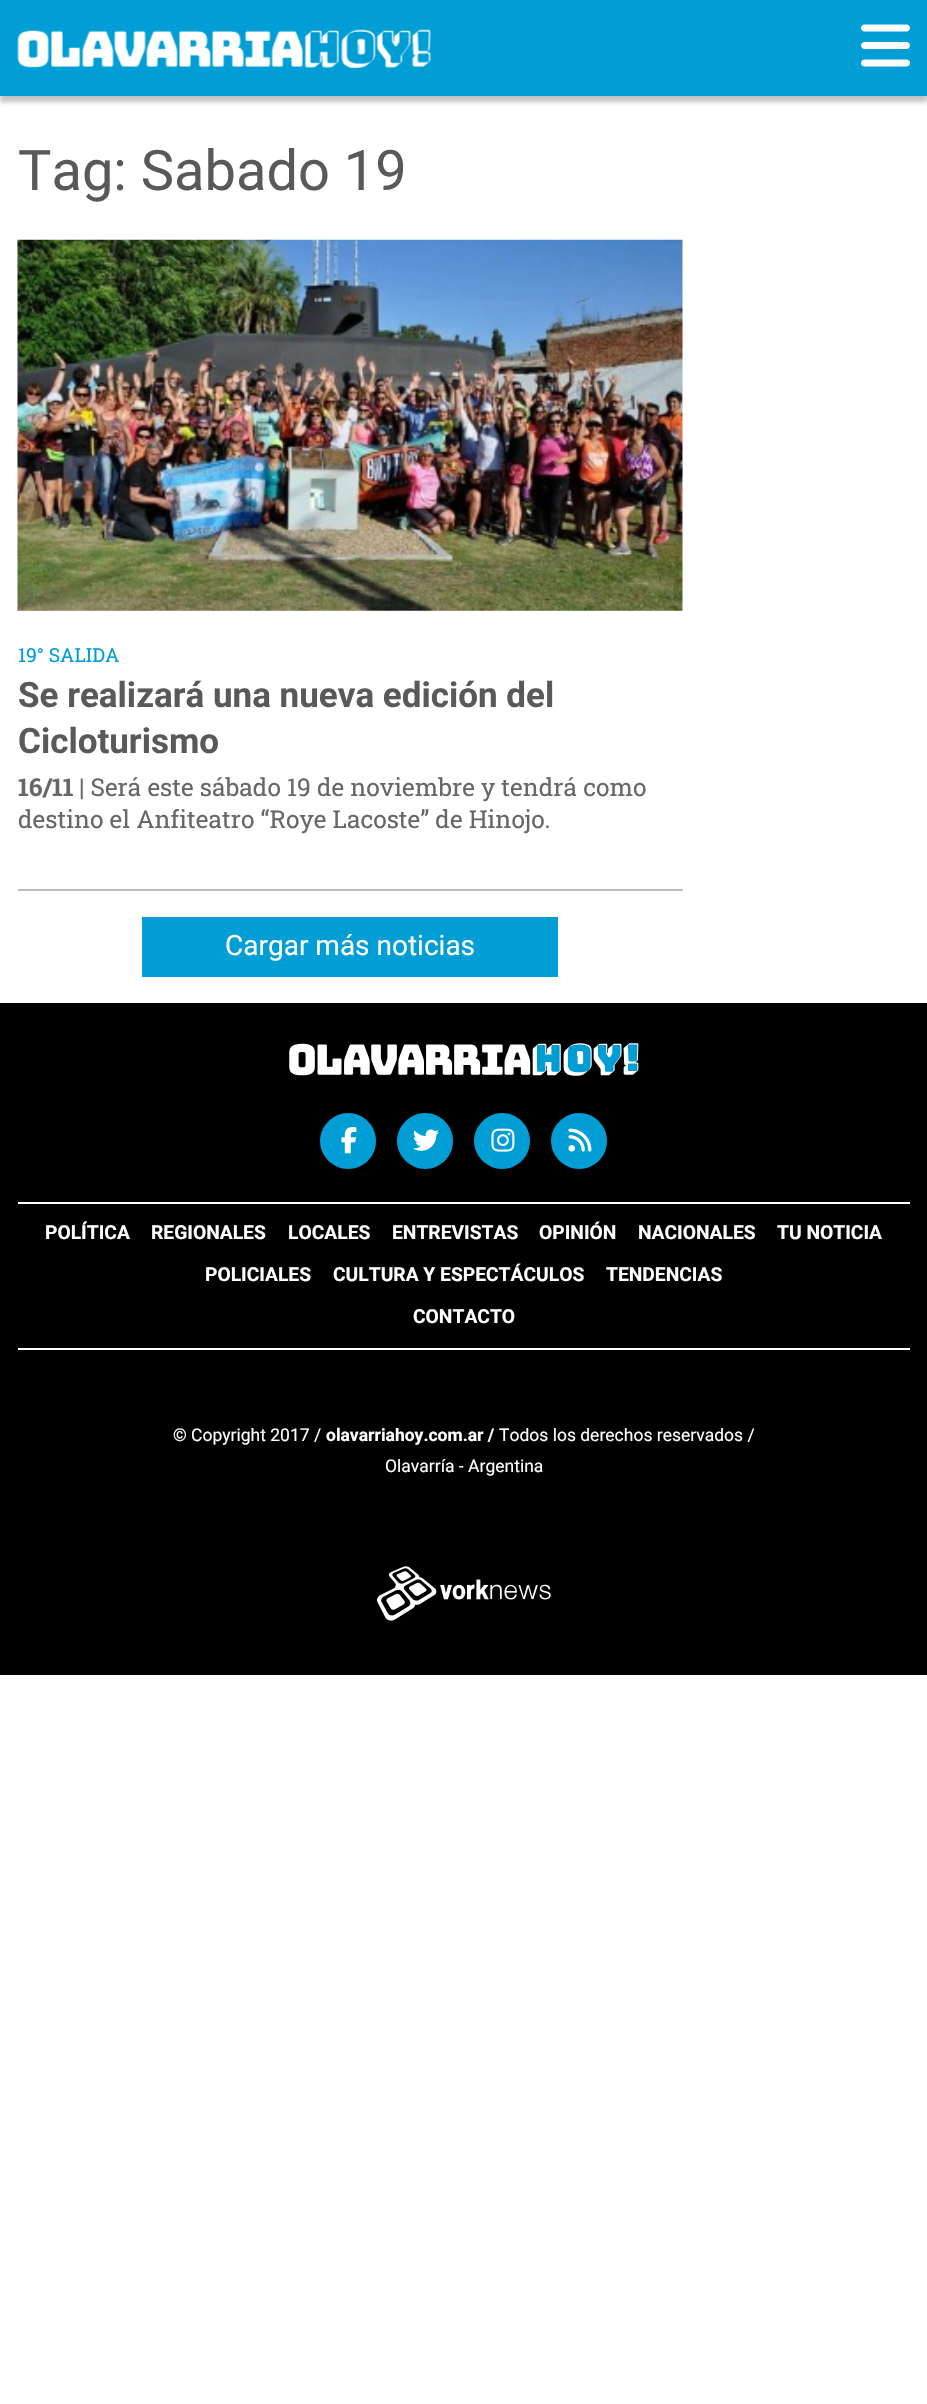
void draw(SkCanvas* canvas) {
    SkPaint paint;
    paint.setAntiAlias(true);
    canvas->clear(0xFFFFFFFF);
    paint.setColor(0x4D323232);
    paint.setMaskFilter(SkMaskFilter::MakeBlur(kNormal_SkBlurStyle, 2.5f));
    canvas->drawRect(SkRect::MakeXYWH(0, 5, 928, 97), paint);
    paint.setMaskFilter(nullptr);
    paint.setColor(0xFF009ED4);
    canvas->drawRect(SkRect::MakeXYWH(0, 0, 927, 96), paint);
    canvas->drawImageRect(SkImages::DeferredFromEncodedData(SkData::MakeFromFileName("img1.png")), SkRect::MakeXYWH(17, 29, 414, 39), SkSamplingOptions());
    canvas->drawImageRect(SkImages::DeferredFromEncodedData(SkData::MakeFromFileName("img2.png")), SkRect::MakeXYWH(861, 24, 49, 43), SkSamplingOptions());
    SkFont font1(fontMgr->matchFamilyStyle("Roboto", SkFontStyle::Normal()), 56);
    font1.setSubpixel(true);
    paint.setColor(0xFF58595B);
    canvas->drawString("Tag: Sabado 19", 18, 190, font1, paint);
    paint.setColor(0xFFBBBDBF);
    canvas->drawRect(SkRect::MakeXYWH(18, 889, 665, 2), paint);
    canvas->drawImageRect(SkImages::DeferredFromEncodedData(SkData::MakeFromFileName("img3.png")), SkRect::MakeXYWH(17, 239, 666, 372), SkSamplingOptions());
    SkFont font2(fontMgr->matchFamilyStyle("Roboto Slab", SkFontStyle::Normal()), 19.25f);
    font2.setSubpixel(true);
    paint.setColor(0xFF009ED4);
    canvas->drawString("19° SALIDA", 18, 662, font2, paint);
    SkFont font3(fontMgr->matchFamilyStyle("Roboto", SkFontStyle::Bold()), 35);
    font3.setSubpixel(true);
    paint.setColor(0xFF58595B);
    canvas->drawString("Se realizará una nueva edición del", 18, 707, font3, paint);
    canvas->drawString("Cicloturismo", 18, 753, font3, paint);
    SkFont font4(fontMgr->matchFamilyStyle("Roboto Slab", SkFontStyle::Bold()), 24.5f);
    font4.setSubpixel(true);
    paint.setColor(0xFF676767);
    canvas->drawString("16/11", 18, 796, font4, paint);
    SkFont font5(fontMgr->matchFamilyStyle("Roboto Slab", SkFontStyle::Normal()), 24.5f);
    font5.setSubpixel(true);
    canvas->drawString("| Será este sábado 19 de noviembre y tendrá como", 79, 796, font5, paint);
    canvas->drawString("destino el Anfiteatro “Roye Lacoste” de Hinojo.", 18, 828, font5, paint);
    paint.setColor(0xFF009ED4);
    canvas->drawRect(SkRect::MakeXYWH(142, 917, 416, 60), paint);
    SkFont font6(fontMgr->matchFamilyStyle("Roboto", SkFontStyle::Normal()), 28);
    font6.setSubpixel(true);
    paint.setColor(0xFFFFFFFF);
    canvas->drawString("Cargar más noticias", 225, 955, font6, paint);
    paint.setColor(0xFF000000);
    canvas->drawRect(SkRect::MakeXYWH(0, 1003, 927, 672), paint);
    canvas->drawImageRect(SkImages::DeferredFromEncodedData(SkData::MakeFromFileName("img4.png")), SkRect::MakeXYWH(289, 1043, 350, 33), SkSamplingOptions());
    paint.setColor(0xFF009ED4);
    canvas->drawPath(SkPathBuilder().moveTo(348, 1169).cubicTo(364, 1169, 376, 1156, 376, 1141).cubicTo(376, 1126, 364, 1113, 348, 1113).cubicTo(333, 1113, 320, 1126, 320, 1141).cubicTo(320, 1156, 333, 1169, 348, 1169).close().detach(), paint);
    canvas->drawImageRect(SkImages::DeferredFromEncodedData(SkData::MakeFromFileName("img5.png")), SkRect::MakeXYWH(341, 1127, 16, 27), SkSamplingOptions());
    canvas->drawPath(SkPathBuilder().moveTo(425, 1169).cubicTo(441, 1169, 453, 1156, 453, 1141).cubicTo(453, 1126, 441, 1113, 425, 1113).cubicTo(410, 1113, 397, 1126, 397, 1141).cubicTo(397, 1156, 410, 1169, 425, 1169).close().detach(), paint);
    canvas->drawImageRect(SkImages::DeferredFromEncodedData(SkData::MakeFromFileName("img6.png")), SkRect::MakeXYWH(413, 1129, 26, 22), SkSamplingOptions());
    canvas->drawPath(SkPathBuilder().moveTo(502, 1169).cubicTo(518, 1169, 530, 1156, 530, 1141).cubicTo(530, 1126, 518, 1113, 502, 1113).cubicTo(487, 1113, 474, 1126, 474, 1141).cubicTo(474, 1156, 487, 1169, 502, 1169).close().detach(), paint);
    canvas->drawImageRect(SkImages::DeferredFromEncodedData(SkData::MakeFromFileName("img7.png")), SkRect::MakeXYWH(491, 1128, 24, 24), SkSamplingOptions());
    canvas->drawPath(SkPathBuilder().moveTo(579, 1169).cubicTo(595, 1169, 607, 1156, 607, 1141).cubicTo(607, 1126, 595, 1113, 579, 1113).cubicTo(564, 1113, 551, 1126, 551, 1141).cubicTo(551, 1156, 564, 1169, 579, 1169).close().detach(), paint);
    canvas->drawImageRect(SkImages::DeferredFromEncodedData(SkData::MakeFromFileName("img8.png")), SkRect::MakeXYWH(568, 1128, 24, 24), SkSamplingOptions());
    paint.setColor(0xFFFFFFFF);
    canvas->drawRect(SkRect::MakeXYWH(18, 1202, 892, 2), paint);
    SkFont font7(fontMgr->matchFamilyStyle("Roboto", SkFontStyle::Bold()), 19.25f);
    font7.setSubpixel(true);
    canvas->drawString("POLÍTICA", 45, 1239, font7, paint);
    canvas->drawString("REGIONALES", 151, 1239, font7, paint);
    canvas->drawString("LOCALES", 288, 1239, font7, paint);
    canvas->drawString("ENTREVISTAS", 392, 1239, font7, paint);
    canvas->drawString("OPINIÓN", 539, 1239, font7, paint);
    canvas->drawString("NACIONALES", 638, 1239, font7, paint);
    canvas->drawString("TU NOTICIA", 777, 1239, font7, paint);
    canvas->drawString("POLICIALES", 205, 1281, font7, paint);
    canvas->drawString("CULTURA Y ESPECTÁCULOS", 333, 1281, font7, paint);
    canvas->drawString("TENDENCIAS", 606, 1281, font7, paint);
    canvas->drawString("CONTACTO", 413, 1323, font7, paint);
    canvas->drawRect(SkRect::MakeXYWH(18, 1348, 892, 2), paint);
    SkFont font8(fontMgr->matchFamilyStyle("Roboto", SkFontStyle::Normal()), 17.5f);
    font8.setSubpixel(true);
    canvas->drawString("© Copyright 2017 /", 173, 1441, font8, paint);
    SkFont font9(fontMgr->matchFamilyStyle("Roboto", SkFontStyle::Bold()), 17.5f);
    font9.setSubpixel(true);
    canvas->drawString("olavarriahoy.com.ar /", 326, 1441, font9, paint);
    canvas->drawString("Todos los derechos reservados /", 499, 1441, font8, paint);
    canvas->drawString("Olavarría - Argentina", 385, 1472, font8, paint);
    canvas->drawImageRect(SkImages::DeferredFromEncodedData(SkData::MakeFromFileName("img9.png")), SkRect::MakeXYWH(376, 1566, 175, 55), SkSamplingOptions());
}
